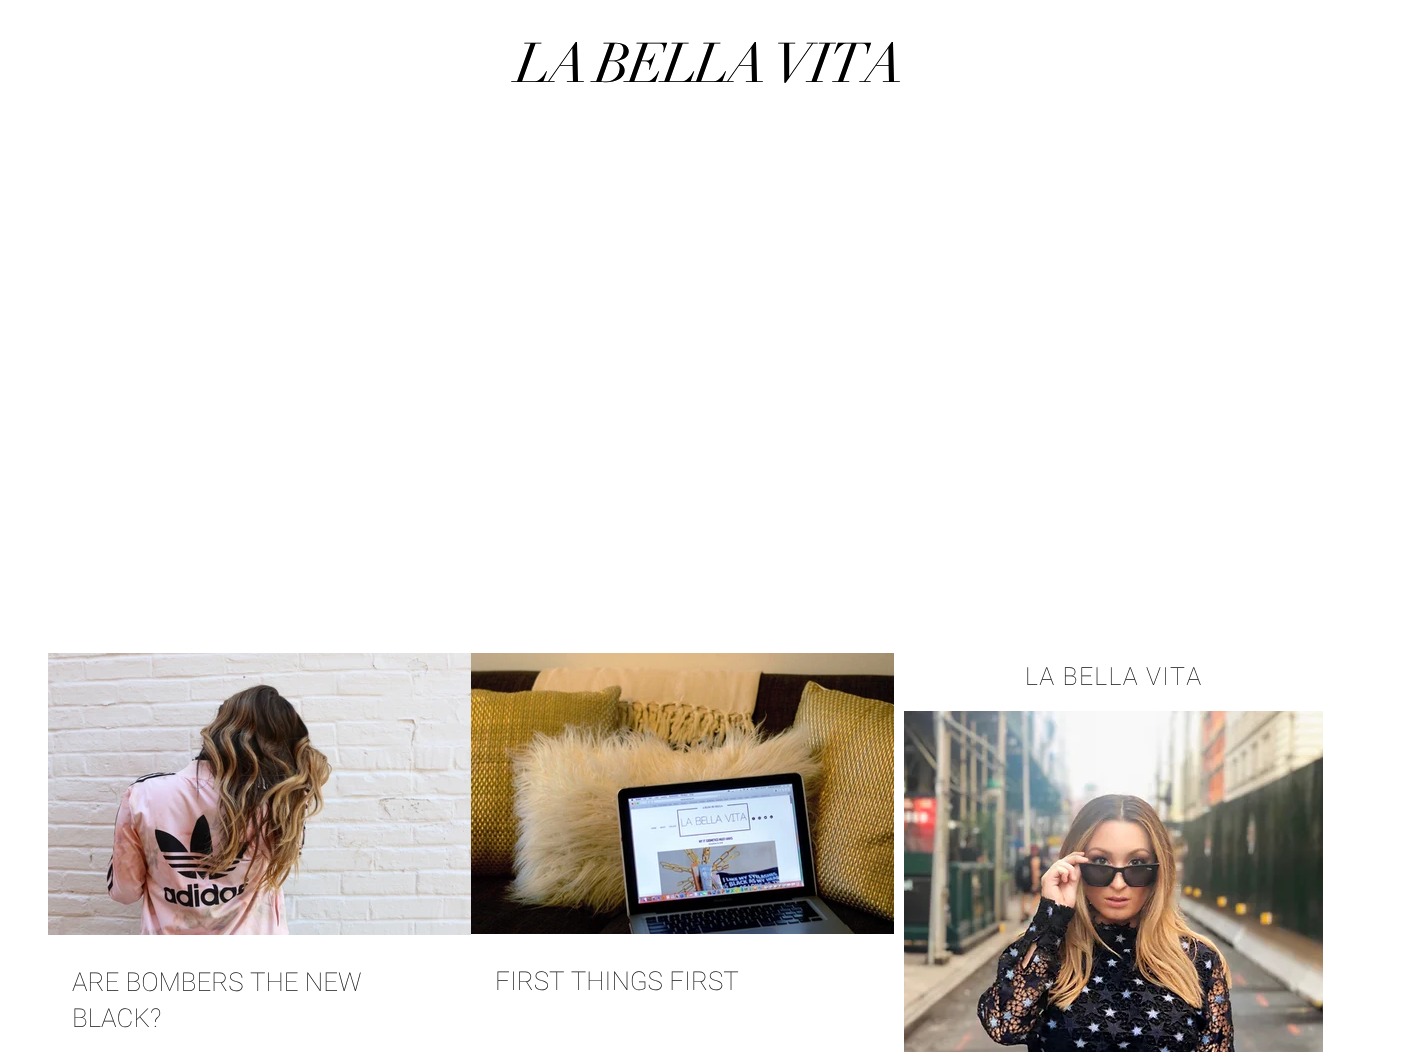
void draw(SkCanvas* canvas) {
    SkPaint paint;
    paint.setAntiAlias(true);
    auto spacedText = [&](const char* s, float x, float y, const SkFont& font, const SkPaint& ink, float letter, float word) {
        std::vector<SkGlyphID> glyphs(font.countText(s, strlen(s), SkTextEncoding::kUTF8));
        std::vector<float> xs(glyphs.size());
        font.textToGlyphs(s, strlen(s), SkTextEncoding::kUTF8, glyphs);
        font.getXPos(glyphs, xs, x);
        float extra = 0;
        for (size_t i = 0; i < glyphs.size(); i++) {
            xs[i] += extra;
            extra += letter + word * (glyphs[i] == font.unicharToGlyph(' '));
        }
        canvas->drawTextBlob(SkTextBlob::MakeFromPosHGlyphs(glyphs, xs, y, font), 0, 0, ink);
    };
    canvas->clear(0xFFFFFFFF);
    SkFont font1(fontMgr->matchFamilyStyle("didot", SkFontStyle::Normal()), 55);
    font1.setSubpixel(true);
    paint.setColor(0xFF000000);
    spacedText("LA BELLA VITA", 516, 82, font1, paint, -2.75f, 0);
    SkFont font2(fontMgr->matchFamilyStyle("Roboto", SkFontStyle(100, SkFontStyle::kNormal_Width, SkFontStyle::kUpright_Slant)), 25);
    font2.setSubpixel(true);
    paint.setColor(0xFF292929);
    spacedText("LA BELLA VITA", 1025, 685, font2, paint, 1.25f, 0);
    canvas->drawImageRect(SkImages::DeferredFromEncodedData(SkData::MakeFromFileName("img1.png")), SkRect::MakeXYWH(48, 653, 423, 282), SkSamplingOptions());
    SkFont font3(fontMgr->matchFamilyStyle("Roboto", SkFontStyle(100, SkFontStyle::kNormal_Width, SkFontStyle::kUpright_Slant)), 26);
    font3.setSubpixel(true);
    paint.setColor(0xFF2F2E2E);
    canvas->drawString("ARE BOMBERS THE NEW", 72, 991, font3, paint);
    canvas->drawString("BLACK?", 72, 1027, font3, paint);
    canvas->drawImageRect(SkImages::DeferredFromEncodedData(SkData::MakeFromFileName("img2.png")), SkRect::MakeXYWH(471, 653, 423, 281), SkSamplingOptions());
    canvas->drawString("FIRST THINGS FIRST", 495, 990, font3, paint);
    canvas->drawImageRect(SkImages::DeferredFromEncodedData(SkData::MakeFromFileName("img3.png")), SkRect::MakeXYWH(904, 711, 419, 341), SkSamplingOptions());
}
